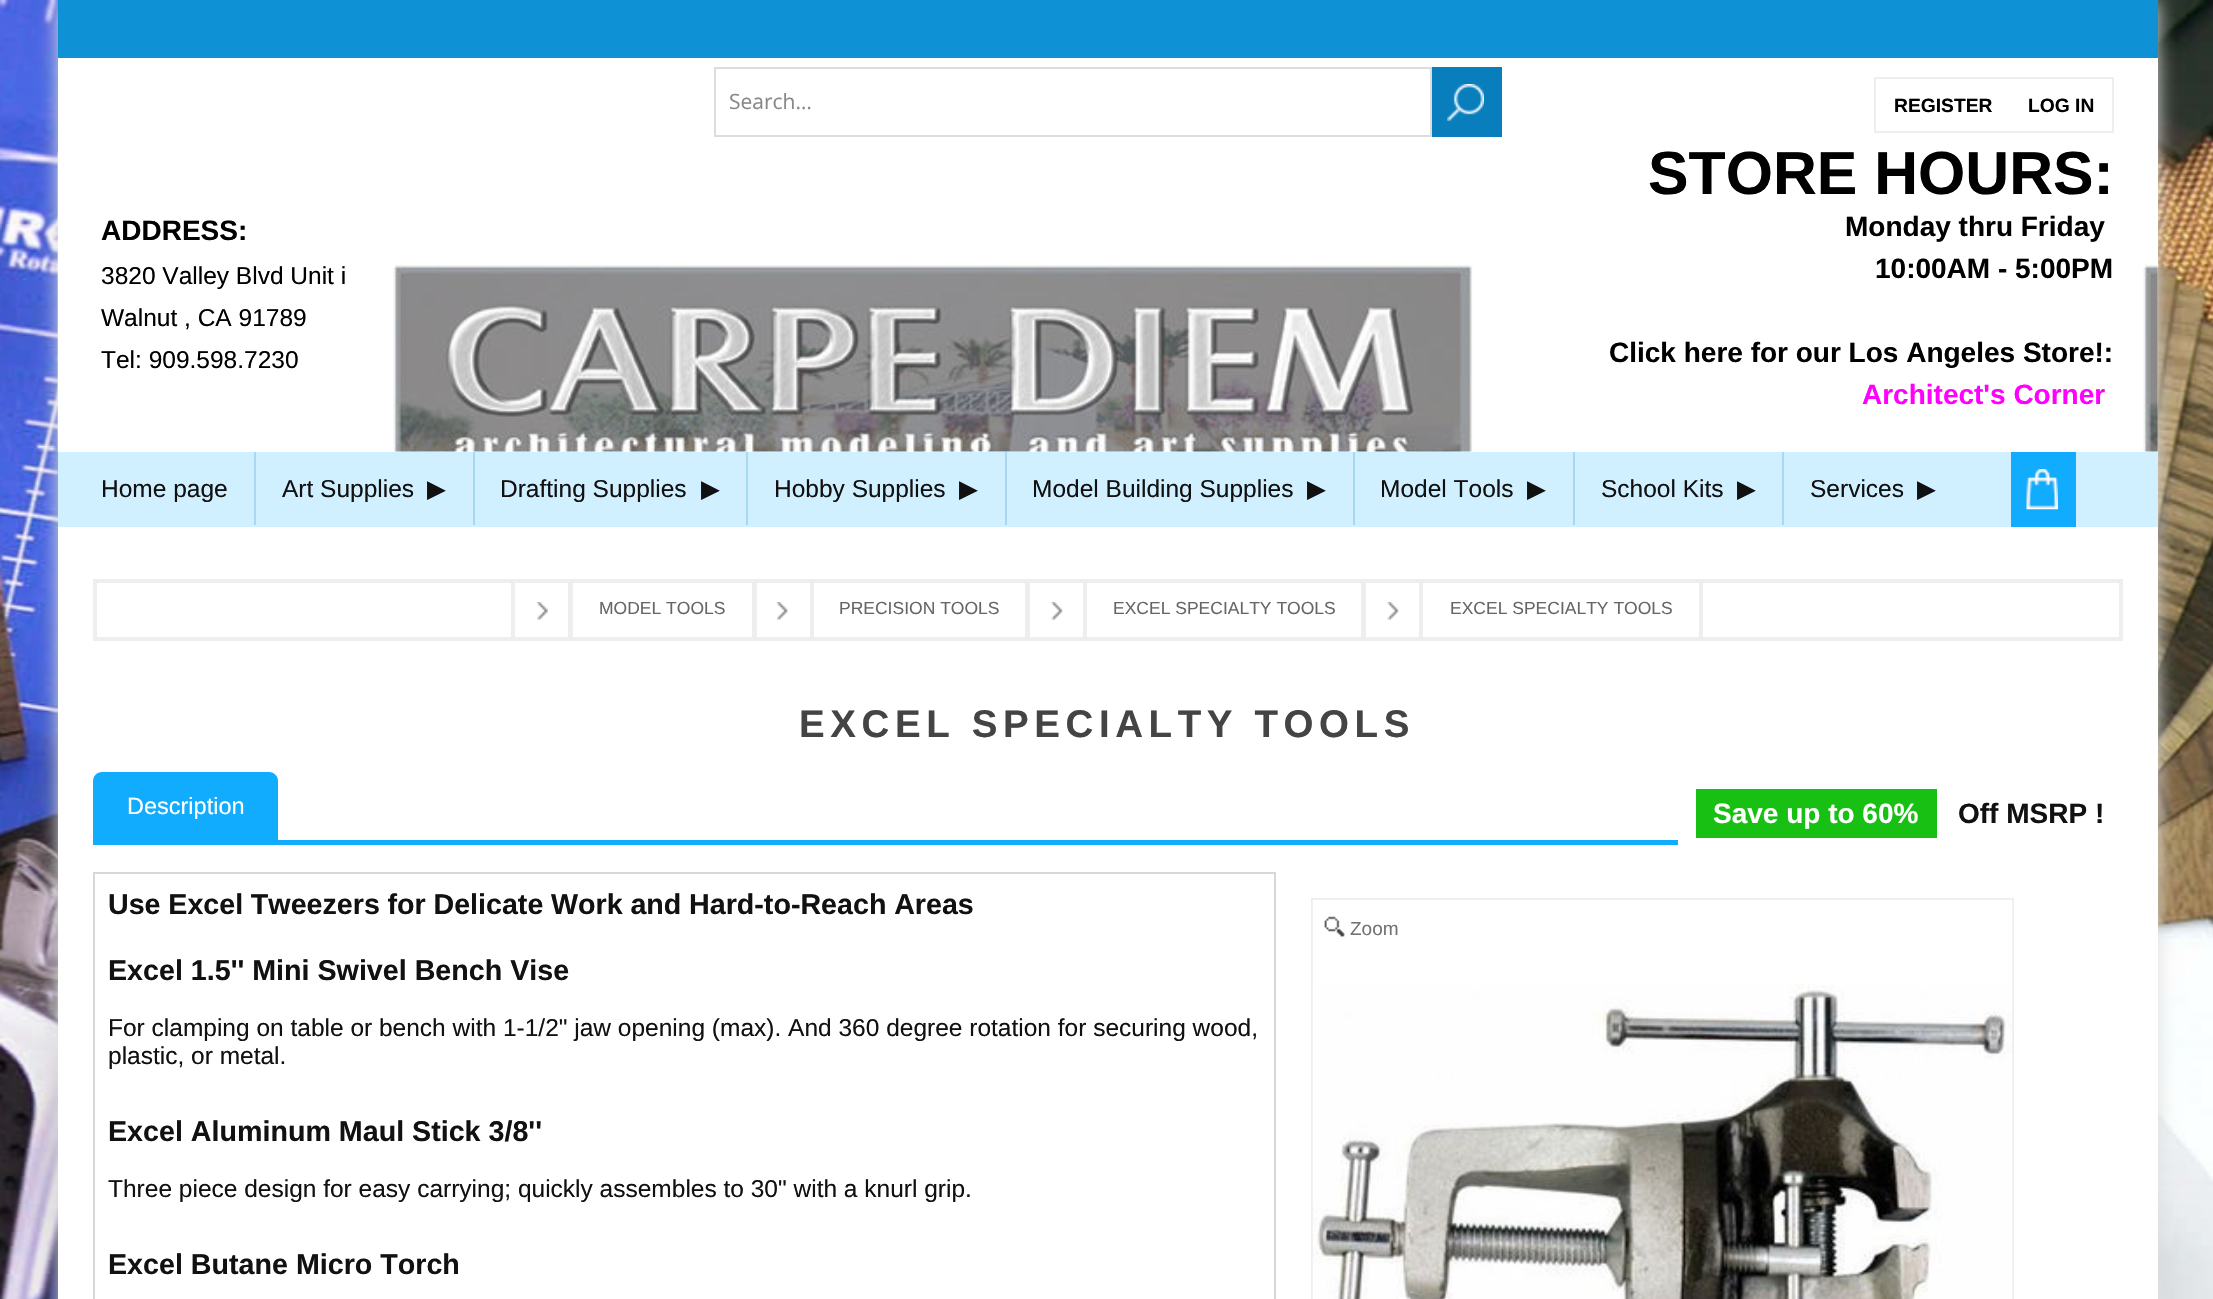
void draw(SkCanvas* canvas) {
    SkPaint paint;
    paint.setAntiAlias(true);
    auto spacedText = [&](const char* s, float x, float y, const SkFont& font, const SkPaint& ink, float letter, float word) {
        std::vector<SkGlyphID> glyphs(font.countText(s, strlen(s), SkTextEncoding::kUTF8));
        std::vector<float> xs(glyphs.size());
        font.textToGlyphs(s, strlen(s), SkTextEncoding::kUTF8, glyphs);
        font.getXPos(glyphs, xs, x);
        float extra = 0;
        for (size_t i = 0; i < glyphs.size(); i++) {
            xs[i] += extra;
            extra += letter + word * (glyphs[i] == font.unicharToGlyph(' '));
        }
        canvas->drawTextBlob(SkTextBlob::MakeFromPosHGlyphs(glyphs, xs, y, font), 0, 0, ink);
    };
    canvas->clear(0xFFFFFFFF);
    canvas->drawImageRect(SkImages::DeferredFromEncodedData(SkData::MakeFromFileName("img1.png")), SkRect::MakeXYWH(0, 0, 2213, 1299), SkSamplingOptions());
    paint.setColor(0xFFDDDDDD);
    paint.setMaskFilter(SkMaskFilter::MakeBlur(kNormal_SkBlurStyle, 9));
    canvas->drawRect(SkRect::MakeXYWH(58, 0, 2100, 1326), paint);
    paint.setMaskFilter(nullptr);
    paint.setColor(0xFFFFFFFF);
    canvas->drawRect(SkRect::MakeXYWH(58, 58, 2100, 1241), paint);
    paint.setColor(0xFF0F91D5);
    canvas->drawRect(SkRect::MakeXYWH(58, 0, 2100, 58), paint);
    paint.setStyle(SkPaint::kStroke_Style);
    paint.setStrokeWidth(2);
    paint.setColor(0xFFDDDDDD);
    canvas->drawRect(SkRect::MakeXYWH(715, 68, 716, 68), paint);
    SkFont font1(fontMgr->matchFamilyStyle("Open Sans", SkFontStyle::Normal()), 21);
    font1.setSubpixel(true);
    paint.setStyle(SkPaint::kFill_Style);
    paint.setColor(0xFF888888);
    canvas->drawString("Search…", 729, 109, font1, paint);
    paint.setColor(0xFF087EBD);
    canvas->drawRect(SkRect::MakeXYWH(1432, 67, 70, 70), paint);
    canvas->drawImageRect(SkImages::DeferredFromEncodedData(SkData::MakeFromFileName("img2.png")), SkRect::MakeXYWH(1447, 84, 37, 37), SkSamplingOptions());
    paint.setStyle(SkPaint::kStroke_Style);
    paint.setColor(0xFFEEEEEE);
    canvas->drawRect(SkRect::MakeXYWH(1875, 78, 238, 54), paint);
    SkFont font2(fontMgr->matchFamilyStyle("Liberation Sans", SkFontStyle::Bold()), 19.25f);
    font2.setSubpixel(true);
    paint.setStyle(SkPaint::kFill_Style);
    paint.setColor(0xFF000000);
    canvas->drawString("REGISTER", 1894, 112, font2, paint);
    canvas->drawString("LOG IN", 2028, 112, font2, paint);
    canvas->drawImageRect(SkImages::DeferredFromEncodedData(SkData::MakeFromFileName("img3.png")), SkRect::MakeXYWH(57, 152, 2101, 300), SkSamplingOptions());
    SkFont font3(fontMgr->matchFamilyStyle("Liberation Sans", SkFontStyle::Bold()), 28);
    font3.setSubpixel(true);
    canvas->drawString("ADDRESS:", 101, 240, font3, paint);
    SkFont font4(fontMgr->matchFamilyStyle("Liberation Sans", SkFontStyle::Normal()), 24.5f);
    font4.setSubpixel(true);
    canvas->drawString("3820 Valley Blvd Unit i", 101, 284, font4, paint);
    canvas->drawString("Walnut , CA 91789", 101, 326, font4, paint);
    canvas->drawString("Tel: 909.598.7230", 101, 368, font4, paint);
    SkFont font5(fontMgr->matchFamilyStyle("Liberation Sans", SkFontStyle::Bold()), 60.75f);
    font5.setSubpixel(true);
    canvas->drawString("STORE HOURS:", 1648, 194, font5, paint);
    canvas->drawString("Monday thru Friday", 1845, 236, font3, paint);
    paint.setColor(0x1AFFFFFF);
    canvas->drawRect(SkRect::MakeXYWH(394, 266, 1764, 186), paint);
    paint.setColor(0xFF000000);
    canvas->drawString("10:00AM - 5:00PM", 1875, 278, font3, paint);
    canvas->drawString("Click here for our Los Angeles Store!:", 1609, 362, font3, paint);
    paint.setColor(0xFFFF00FF);
    canvas->drawString("Architect's Corner", 1862, 404, font3, paint);
    paint.setColor(0xFFD0EFFF);
    canvas->drawRect(SkRect::MakeXYWH(58, 452, 2100, 75), paint);
    paint.setColor(0xFF111111);
    canvas->drawString("Home page", 101, 497, font4, paint);
    paint.setColor(0xFFA8D8F2);
    canvas->drawRect(SkRect::MakeXYWH(254, 452, 2, 73), paint);
    paint.setColor(0xFF111111);
    canvas->drawString("Art Supplies", 282, 497, font4, paint);
    SkFont font6(fontMgr->matchFamilyStyle("DejaVu Sans", SkFontStyle::Normal()), 24.5f);
    font6.setSubpixel(true);
    canvas->drawString("▶", 427, 497, font6, paint);
    paint.setColor(0xFFA8D8F2);
    canvas->drawRect(SkRect::MakeXYWH(473, 452, 2, 73), paint);
    paint.setColor(0xFF111111);
    canvas->drawString("Drafting Supplies", 500, 497, font4, paint);
    canvas->drawString("▶", 701, 497, font6, paint);
    paint.setColor(0xFFA8D8F2);
    canvas->drawRect(SkRect::MakeXYWH(746, 452, 2, 73), paint);
    paint.setColor(0xFF111111);
    canvas->drawString("Hobby Supplies", 774, 497, font4, paint);
    canvas->drawString("▶", 959, 497, font6, paint);
    paint.setColor(0xFFA8D8F2);
    canvas->drawRect(SkRect::MakeXYWH(1005, 452, 2, 73), paint);
    paint.setColor(0xFF111111);
    canvas->drawString("Model Building Supplies", 1032, 497, font4, paint);
    canvas->drawString("▶", 1307, 497, font6, paint);
    paint.setColor(0xFFA8D8F2);
    canvas->drawRect(SkRect::MakeXYWH(1353, 452, 2, 73), paint);
    paint.setColor(0xFF111111);
    canvas->drawString("Model Tools", 1380, 497, font4, paint);
    canvas->drawString("▶", 1527, 497, font6, paint);
    paint.setColor(0xFFA8D8F2);
    canvas->drawRect(SkRect::MakeXYWH(1573, 452, 2, 73), paint);
    paint.setColor(0xFF111111);
    canvas->drawString("School Kits", 1601, 497, font4, paint);
    canvas->drawString("▶", 1737, 497, font6, paint);
    paint.setColor(0xFFA8D8F2);
    canvas->drawRect(SkRect::MakeXYWH(1782, 452, 2, 73), paint);
    paint.setColor(0xFF111111);
    canvas->drawString("Services", 1810, 497, font4, paint);
    canvas->drawString("▶", 1917, 497, font6, paint);
    paint.setColor(0xFF11ACFD);
    canvas->drawRect(SkRect::MakeXYWH(2011, 452, 65, 75), paint);
    canvas->drawImageRect(SkImages::DeferredFromEncodedData(SkData::MakeFromFileName("img4.png")), SkRect::MakeXYWH(2026, 469, 32, 41), SkSamplingOptions());
    paint.setColor(0xFFEEEEEE);
    canvas->drawRect(SkRect::MakeXYWH(93, 579, 2030, 4), paint);
    canvas->drawRect(SkRect::MakeXYWH(2119, 579, 4, 62), paint);
    canvas->drawRect(SkRect::MakeXYWH(93, 579, 4, 62), paint);
    canvas->drawImageRect(SkImages::DeferredFromEncodedData(SkData::MakeFromFileName("img5.png")), SkRect::MakeXYWH(537, 602, 11, 18), SkSamplingOptions());
    paint.setStyle(SkPaint::kStroke_Style);
    paint.setStrokeWidth(4);
    canvas->drawRect(SkRect::MakeXYWH(513, 581, 57, 58), paint);
    canvas->drawRect(SkRect::MakeXYWH(571, 581, 183, 58), paint);
    SkFont font7(fontMgr->matchFamilyStyle("Liberation Sans", SkFontStyle::Normal()), 17.5f);
    font7.setSubpixel(true);
    paint.setStyle(SkPaint::kFill_Style);
    paint.setColor(0xFF666666);
    canvas->drawString("MODEL TOOLS", 599, 614, font7, paint);
    canvas->drawImageRect(SkImages::DeferredFromEncodedData(SkData::MakeFromFileName("img6.png")), SkRect::MakeXYWH(777, 602, 11, 18), SkSamplingOptions());
    paint.setStyle(SkPaint::kStroke_Style);
    paint.setColor(0xFFEEEEEE);
    canvas->drawRect(SkRect::MakeXYWH(755, 581, 57, 58), paint);
    canvas->drawRect(SkRect::MakeXYWH(812, 581, 215, 58), paint);
    paint.setStyle(SkPaint::kFill_Style);
    paint.setColor(0xFF666666);
    canvas->drawString("PRECISION TOOLS", 839, 614, font7, paint);
    canvas->drawImageRect(SkImages::DeferredFromEncodedData(SkData::MakeFromFileName("img7.png")), SkRect::MakeXYWH(1051, 602, 12, 18), SkSamplingOptions());
    paint.setStyle(SkPaint::kStroke_Style);
    paint.setColor(0xFFEEEEEE);
    canvas->drawRect(SkRect::MakeXYWH(1028, 581, 57, 58), paint);
    canvas->drawRect(SkRect::MakeXYWH(1085, 581, 278, 58), paint);
    paint.setStyle(SkPaint::kFill_Style);
    paint.setColor(0xFF666666);
    canvas->drawString("EXCEL SPECIALTY TOOLS", 1113, 614, font7, paint);
    canvas->drawImageRect(SkImages::DeferredFromEncodedData(SkData::MakeFromFileName("img8.png")), SkRect::MakeXYWH(1387, 602, 12, 18), SkSamplingOptions());
    paint.setStyle(SkPaint::kStroke_Style);
    paint.setColor(0xFFEEEEEE);
    canvas->drawRect(SkRect::MakeXYWH(1364, 581, 57, 58), paint);
    canvas->drawRect(SkRect::MakeXYWH(1421, 581, 280, 58), paint);
    paint.setStyle(SkPaint::kFill_Style);
    paint.setColor(0xFF666666);
    canvas->drawString("EXCEL SPECIALTY TOOLS", 1450, 614, font7, paint);
    paint.setColor(0xFFEEEEEE);
    canvas->drawRect(SkRect::MakeXYWH(96, 637, 2023, 4), paint);
    SkFont font8(fontMgr->matchFamilyStyle("Liberation Sans", SkFontStyle::Bold()), 38.5f);
    font8.setSubpixel(true);
    paint.setColor(0xFF444444);
    spacedText("EXCEL SPECIALTY TOOLS", 799, 737, font8, paint, 5.6f, 0);
    paint.setColor(0xFF11ACFD);
    canvas->drawRect(SkRect::MakeXYWH(93, 840, 1585, 5), paint);
    canvas->drawPath(SkPathBuilder().moveTo(102, 772).lineTo(269, 772).cubicTo(274, 772, 278, 776, 278, 781).lineTo(278, 840).lineTo(93, 840).lineTo(93, 781).cubicTo(93, 776, 97, 772, 102, 772).close().detach(), paint);
    SkFont font9(fontMgr->matchFamilyStyle("Liberation Sans", SkFontStyle::Normal()), 23.5f);
    font9.setSubpixel(true);
    paint.setColor(0xFFFFFFFF);
    canvas->drawString("Description", 127, 814, font9, paint);
    paint.setColor(0xFF18C014);
    canvas->drawRect(SkRect::MakeXYWH(1696, 789, 241, 49), paint);
    paint.setColor(0xFFFFFFFF);
    canvas->drawString("Save up to 60%", 1713, 823, font3, paint);
    paint.setColor(0xFF111111);
    canvas->drawString("Off MSRP !", 1958, 823, font3, paint);
    paint.setStyle(SkPaint::kStroke_Style);
    paint.setStrokeWidth(2);
    paint.setColor(0xFFD7D7D7);
    canvas->drawRect(SkRect::MakeXYWH(94, 873, 1181, 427), paint);
    SkFont font10(fontMgr->matchFamilyStyle("Liberation Sans", SkFontStyle::Bold()), 28.65f);
    font10.setSubpixel(true);
    paint.setStyle(SkPaint::kFill_Style);
    paint.setColor(0xFF111111);
    spacedText("Use Excel Tweezers for Delicate Work and Hard-to-Reach Areas", 108, 914, font10, paint, 0, -0.25f);
    canvas->drawString("Excel 1.5'' Mini Swivel Bench Vise", 108, 980, font10, paint);
    canvas->drawString("For clamping on table or bench with 1-1/2\" jaw opening (max). And 360 degree rotation for securing wood,", 108, 1036, font4, paint);
    canvas->drawString("plastic, or metal.", 108, 1064, font4, paint);
    canvas->drawString("Excel Aluminum Maul Stick 3/8''", 108, 1141, font10, paint);
    canvas->drawString("Three piece design for easy carrying; quickly assembles to 30\" with a knurl grip.", 108, 1197, font4, paint);
    canvas->drawString("Excel Butane Micro Torch", 108, 1274, font10, paint);
    paint.setStyle(SkPaint::kStroke_Style);
    paint.setColor(0xFFEEEEEE);
    canvas->drawRect(SkRect::MakeXYWH(1312, 899, 701, 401), paint);
    canvas->drawImageRect(SkImages::DeferredFromEncodedData(SkData::MakeFromFileName("img9.png")), SkRect::MakeXYWH(1312, 899, 701, 400), SkSamplingOptions());
    canvas->drawImageRect(SkImages::DeferredFromEncodedData(SkData::MakeFromFileName("img10.png")), SkRect::MakeXYWH(1324, 916, 21, 21), SkSamplingOptions());
    SkFont font11(fontMgr->matchFamilyStyle("Liberation Sans", SkFontStyle::Normal()), 19);
    font11.setSubpixel(true);
    paint.setStyle(SkPaint::kFill_Style);
    paint.setColor(0xFF737373);
    canvas->drawString("Zoom", 1350, 935, font11, paint);
}
